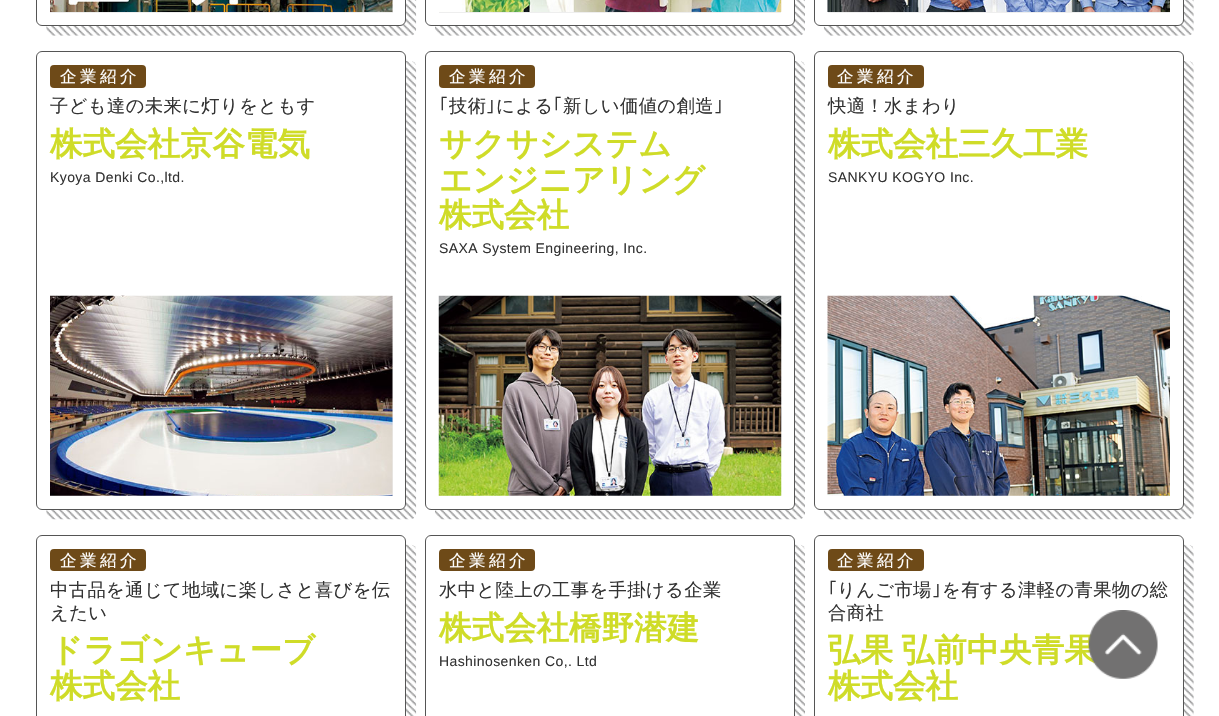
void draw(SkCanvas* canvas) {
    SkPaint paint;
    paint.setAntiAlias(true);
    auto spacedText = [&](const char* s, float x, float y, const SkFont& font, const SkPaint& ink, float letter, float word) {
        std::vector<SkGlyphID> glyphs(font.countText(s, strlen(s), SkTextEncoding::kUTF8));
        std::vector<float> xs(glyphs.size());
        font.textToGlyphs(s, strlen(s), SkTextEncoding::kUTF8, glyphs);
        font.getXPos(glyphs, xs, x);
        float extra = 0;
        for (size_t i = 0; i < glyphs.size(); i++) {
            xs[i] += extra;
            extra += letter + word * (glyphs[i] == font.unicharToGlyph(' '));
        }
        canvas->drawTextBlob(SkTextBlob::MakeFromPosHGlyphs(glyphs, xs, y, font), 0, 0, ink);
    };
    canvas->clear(0xFFFFFFFF);
    canvas->drawImageRect(SkImages::DeferredFromEncodedData(SkData::MakeFromFileName("img1.png")), SkRect::MakeXYWH(46, 0, 371, 36), SkSamplingOptions());
    paint.setColor(0xFFFFFFFF);
    canvas->drawRoundRect(SkRect::MakeXYWH(36.5f, -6.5f, 369, 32), 5.5f, 5.5f, paint);
    paint.setStyle(SkPaint::kStroke_Style);
    paint.setStrokeWidth(1);
    paint.setColor(0xFF555555);
    canvas->drawRoundRect(SkRect::MakeXYWH(36.5f, -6.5f, 369, 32), 5.5f, 5.5f, paint);
    paint.setStyle(SkPaint::kFill_Style);
    paint.setColor(0xFFEEEEEE);
    canvas->drawRect(SkRect::MakeXYWH(50, 0, 343, 13), paint);
    canvas->drawImageRect(SkImages::DeferredFromEncodedData(SkData::MakeFromFileName("img2.png")), SkRect::MakeXYWH(50, 0, 343, 12), SkSamplingOptions());
    canvas->drawImageRect(SkImages::DeferredFromEncodedData(SkData::MakeFromFileName("img3.png")), SkRect::MakeXYWH(435, 0, 370, 36), SkSamplingOptions());
    paint.setColor(0xFFFFFFFF);
    canvas->drawRoundRect(SkRect::MakeXYWH(425.5f, -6.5f, 369, 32), 5.5f, 5.5f, paint);
    paint.setStyle(SkPaint::kStroke_Style);
    paint.setColor(0xFF555555);
    canvas->drawRoundRect(SkRect::MakeXYWH(425.5f, -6.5f, 369, 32), 5.5f, 5.5f, paint);
    paint.setStyle(SkPaint::kFill_Style);
    paint.setColor(0xFFEEEEEE);
    canvas->drawRect(SkRect::MakeXYWH(439, 12, 342, 1), paint);
    canvas->drawImageRect(SkImages::DeferredFromEncodedData(SkData::MakeFromFileName("img4.png")), SkRect::MakeXYWH(439, 0, 343, 12), SkSamplingOptions());
    canvas->drawImageRect(SkImages::DeferredFromEncodedData(SkData::MakeFromFileName("img5.png")), SkRect::MakeXYWH(823, 0, 371, 36), SkSamplingOptions());
    paint.setColor(0xFFFFFFFF);
    canvas->drawRoundRect(SkRect::MakeXYWH(814.5f, -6.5f, 369, 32), 5.5f, 5.5f, paint);
    paint.setStyle(SkPaint::kStroke_Style);
    paint.setColor(0xFF555555);
    canvas->drawRoundRect(SkRect::MakeXYWH(814.5f, -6.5f, 369, 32), 5.5f, 5.5f, paint);
    paint.setStyle(SkPaint::kFill_Style);
    paint.setColor(0xFFEEEEEE);
    canvas->drawRect(SkRect::MakeXYWH(828, 12, 342, 1), paint);
    canvas->drawImageRect(SkImages::DeferredFromEncodedData(SkData::MakeFromFileName("img6.png")), SkRect::MakeXYWH(827, 0, 343, 12), SkSamplingOptions());
    canvas->drawImageRect(SkImages::DeferredFromEncodedData(SkData::MakeFromFileName("img7.png")), SkRect::MakeXYWH(46, 60, 371, 460), SkSamplingOptions());
    paint.setColor(0xFFFFFFFF);
    canvas->drawRoundRect(SkRect::MakeXYWH(36.5f, 51.5f, 369, 458), 5.5f, 5.5f, paint);
    paint.setStyle(SkPaint::kStroke_Style);
    paint.setColor(0xFF555555);
    canvas->drawRoundRect(SkRect::MakeXYWH(36.5f, 51.5f, 369, 458), 5.5f, 5.5f, paint);
    paint.setStyle(SkPaint::kFill_Style);
    paint.setColor(0xFF6E4A18);
    canvas->drawRoundRect(SkRect::MakeXYWH(50, 65, 96, 23), 4, 4, paint);
    SkFont font1(fontMgr->matchFamilyStyle("WenQuanYi Zen Hei", SkFontStyle(500, SkFontStyle::kNormal_Width, SkFontStyle::kUpright_Slant)), 16.5f);
    font1.setSubpixel(true);
    paint.setColor(0xFFFFFFFF);
    spacedText("企業紹介", 60, 82, font1, paint, 3.5f, 0);
    SkFont font2(fontMgr->matchFamilyStyle("WenQuanYi Zen Hei", SkFontStyle(500, SkFontStyle::kNormal_Width, SkFontStyle::kUpright_Slant)), 18.3f);
    font2.setSubpixel(true);
    paint.setColor(0xFF333333);
    spacedText("子ども達の未来に灯りをともす", 50, 112, font2, paint, 0.4f, 0);
    SkFont font3(fontMgr->matchFamilyStyle("WenQuanYi Zen Hei", SkFontStyle::Bold()), 32.5f);
    font3.setSubpixel(true);
    paint.setColor(0xFFCFDC28);
    canvas->drawString("株式会社京谷電気", 50, 155, font3, paint);
    SkFont font4(fontMgr->matchFamilyStyle("Liberation Sans", SkFontStyle::Normal()), 14);
    font4.setSubpixel(true);
    paint.setColor(0xFF333333);
    spacedText("Kyoya Denki Co.,ltd.", 50, 182, font4, paint, 0.4f, 0);
    paint.setColor(0xFFEEEEEE);
    canvas->drawRect(SkRect::MakeXYWH(50, 296, 343, 200), paint);
    canvas->drawImageRect(SkImages::DeferredFromEncodedData(SkData::MakeFromFileName("img8.png")), SkRect::MakeXYWH(50, 295, 343, 201), SkSamplingOptions());
    canvas->drawImageRect(SkImages::DeferredFromEncodedData(SkData::MakeFromFileName("img9.png")), SkRect::MakeXYWH(435, 60, 370, 460), SkSamplingOptions());
    paint.setColor(0xFFFFFFFF);
    canvas->drawRoundRect(SkRect::MakeXYWH(425.5f, 51.5f, 369, 458), 5.5f, 5.5f, paint);
    paint.setStyle(SkPaint::kStroke_Style);
    paint.setColor(0xFF555555);
    canvas->drawRoundRect(SkRect::MakeXYWH(425.5f, 51.5f, 369, 458), 5.5f, 5.5f, paint);
    paint.setStyle(SkPaint::kFill_Style);
    paint.setColor(0xFF6E4A18);
    canvas->drawRoundRect(SkRect::MakeXYWH(439, 65, 96, 23), 4, 4, paint);
    paint.setColor(0xFFFFFFFF);
    spacedText("企業紹介", 449, 82, font1, paint, 3.5f, 0);
    SkFont font5(fontMgr->matchFamilyStyle("IPAPGothic", SkFontStyle::Normal()), 18.3f);
    font5.setSubpixel(true);
    paint.setColor(0xFF333333);
    spacedText("｢", 439, 112, font5, paint, 0.4f, 0);
    spacedText("技術", 449, 112, font2, paint, 0.4f, 0);
    spacedText("｣", 486, 112, font5, paint, 0.4f, 0);
    spacedText("による", 496, 112, font2, paint, 0.4f, 0);
    spacedText("｢", 553, 112, font5, paint, 0.4f, 0);
    spacedText("新しい価値の創造", 563, 112, font2, paint, 0.4f, 0);
    spacedText("｣", 714, 112, font5, paint, 0.4f, 0);
    paint.setColor(0xFFCFDC28);
    canvas->drawString("サクサシステム", 439, 155, font3, paint);
    canvas->drawString("エンジニアリング", 439, 191, font3, paint);
    canvas->drawString("株式会社", 439, 226, font3, paint);
    paint.setColor(0xFF333333);
    spacedText("SAXA System Engineering, Inc.", 439, 253, font4, paint, 0.4f, 0);
    canvas->drawImageRect(SkImages::DeferredFromEncodedData(SkData::MakeFromFileName("img10.png")), SkRect::MakeXYWH(438, 295, 344, 201), SkSamplingOptions());
    canvas->drawImageRect(SkImages::DeferredFromEncodedData(SkData::MakeFromFileName("img11.png")), SkRect::MakeXYWH(823, 60, 371, 460), SkSamplingOptions());
    paint.setColor(0xFFFFFFFF);
    canvas->drawRoundRect(SkRect::MakeXYWH(814.5f, 51.5f, 369, 458), 5.5f, 5.5f, paint);
    paint.setStyle(SkPaint::kStroke_Style);
    paint.setColor(0xFF555555);
    canvas->drawRoundRect(SkRect::MakeXYWH(814.5f, 51.5f, 369, 458), 5.5f, 5.5f, paint);
    paint.setStyle(SkPaint::kFill_Style);
    paint.setColor(0xFF6E4A18);
    canvas->drawRoundRect(SkRect::MakeXYWH(828, 65, 96, 23), 4, 4, paint);
    paint.setColor(0xFFFFFFFF);
    spacedText("企業紹介", 837, 82, font1, paint, 3.5f, 0);
    paint.setColor(0xFF333333);
    spacedText("快適！水まわり", 828, 112, font2, paint, 0.4f, 0);
    paint.setColor(0xFFCFDC28);
    canvas->drawString("株式会社三久工業", 828, 155, font3, paint);
    paint.setColor(0xFF333333);
    spacedText("SANKYU KOGYO Inc.", 828, 182, font4, paint, 0.4f, 0);
    canvas->drawImageRect(SkImages::DeferredFromEncodedData(SkData::MakeFromFileName("img12.png")), SkRect::MakeXYWH(827, 295, 343, 201), SkSamplingOptions());
    canvas->drawImageRect(SkImages::DeferredFromEncodedData(SkData::MakeFromFileName("img13.png")), SkRect::MakeXYWH(406, 544, 11, 172), SkSamplingOptions());
    paint.setStyle(SkPaint::kStroke_Style);
    paint.setColor(0xFF555555);
    canvas->drawRoundRect(SkRect::MakeXYWH(36.5f, 535.5f, 369, 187), 5.5f, 5.5f, paint);
    paint.setStyle(SkPaint::kFill_Style);
    paint.setColor(0xFF6E4A18);
    canvas->drawRoundRect(SkRect::MakeXYWH(50, 549, 96, 22), 4, 4, paint);
    paint.setColor(0xFFFFFFFF);
    spacedText("企業紹介", 60, 566, font1, paint, 3.5f, 0);
    paint.setColor(0xFF333333);
    spacedText("中古品を通じて地域に楽しさと喜びを伝", 50, 596, font2, paint, 0.4f, 0);
    spacedText("えたい", 50, 619, font2, paint, 0.4f, 0);
    paint.setColor(0xFFCFDC28);
    canvas->drawString("ドラゴンキューブ", 50, 661, font3, paint);
    canvas->drawString("株式会社", 50, 697, font3, paint);
    canvas->drawImageRect(SkImages::DeferredFromEncodedData(SkData::MakeFromFileName("img14.png")), SkRect::MakeXYWH(795, 544, 10, 172), SkSamplingOptions());
    paint.setStyle(SkPaint::kStroke_Style);
    paint.setColor(0xFF555555);
    canvas->drawRoundRect(SkRect::MakeXYWH(425.5f, 535.5f, 369, 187), 5.5f, 5.5f, paint);
    paint.setStyle(SkPaint::kFill_Style);
    paint.setColor(0xFF6E4A18);
    canvas->drawRoundRect(SkRect::MakeXYWH(439, 549, 96, 22), 4, 4, paint);
    paint.setColor(0xFFFFFFFF);
    spacedText("企業紹介", 449, 566, font1, paint, 3.5f, 0);
    paint.setColor(0xFF333333);
    spacedText("水中と陸上の工事を手掛ける企業", 439, 596, font2, paint, 0.4f, 0);
    paint.setColor(0xFFCFDC28);
    canvas->drawString("株式会社橋野潜建", 439, 639, font3, paint);
    paint.setColor(0xFF333333);
    spacedText("Hashinosenken Co,. Ltd", 439, 666, font4, paint, 0.4f, 0);
    canvas->drawImageRect(SkImages::DeferredFromEncodedData(SkData::MakeFromFileName("img15.png")), SkRect::MakeXYWH(1184, 544, 10, 172), SkSamplingOptions());
    paint.setStyle(SkPaint::kStroke_Style);
    paint.setColor(0xFF555555);
    canvas->drawRoundRect(SkRect::MakeXYWH(814.5f, 535.5f, 369, 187), 5.5f, 5.5f, paint);
    paint.setStyle(SkPaint::kFill_Style);
    paint.setColor(0xFF6E4A18);
    canvas->drawRoundRect(SkRect::MakeXYWH(828, 549, 96, 22), 4, 4, paint);
    paint.setColor(0xFFFFFFFF);
    spacedText("企業紹介", 837, 566, font1, paint, 3.5f, 0);
    paint.setColor(0xFF333333);
    spacedText("｢", 828, 596, font5, paint, 0.4f, 0);
    spacedText("りんご市場", 837, 596, font2, paint, 0.4f, 0);
    spacedText("｣", 932, 596, font5, paint, 0.4f, 0);
    spacedText("を有する津軽の青果物の総", 942, 596, font2, paint, 0.4f, 0);
    spacedText("合商社", 828, 619, font2, paint, 0.4f, 0);
    paint.setColor(0xFFCFDC28);
    spacedText("弘果 弘前中央青果", 828, 661, font3, paint, 0, -1);
    canvas->drawString("株式会社", 828, 697, font3, paint);
    canvas->drawImageRect(SkImages::DeferredFromEncodedData(SkData::MakeFromFileName("img16.png")), SkRect::MakeXYWH(1088, 610, 70, 69), SkSamplingOptions());
}
